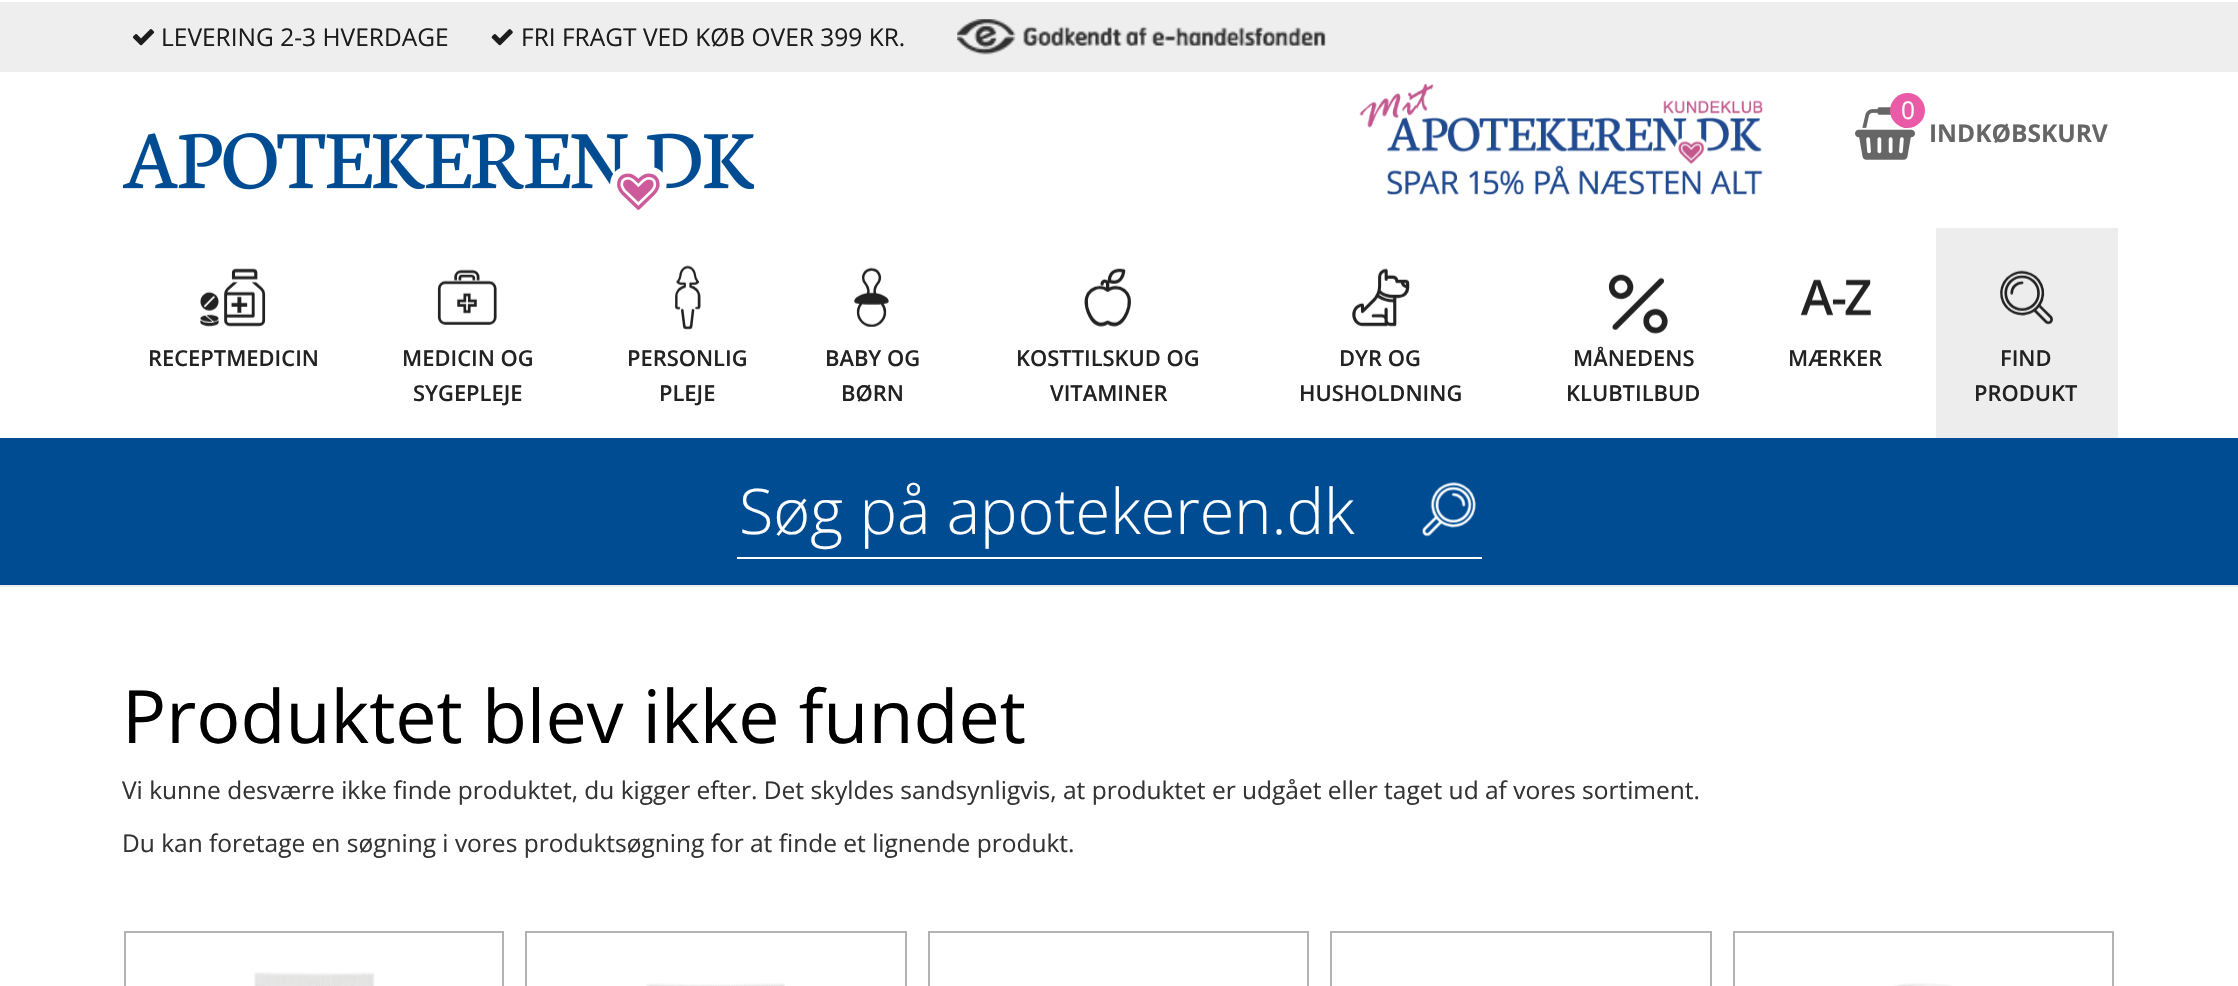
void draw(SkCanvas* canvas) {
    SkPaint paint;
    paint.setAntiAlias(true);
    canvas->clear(0xFFFFFFFF);
    paint.setColor(0xFFEEEEEE);
    canvas->drawRect(SkRect::MakeXYWH(0, 2, 2238, 70), paint);
    canvas->drawImageRect(SkImages::DeferredFromEncodedData(SkData::MakeFromFileName("img1.png")), SkRect::MakeXYWH(132, 29, 23, 17), SkSamplingOptions());
    SkFont font1(fontMgr->matchFamilyStyle("Open Sans", SkFontStyle::Normal()), 24.5f);
    font1.setSubpixel(true);
    paint.setColor(0xFF1C1C1C);
    canvas->drawString("LEVERING 2-3 HVERDAGE", 161, 46, font1, paint);
    canvas->drawImageRect(SkImages::DeferredFromEncodedData(SkData::MakeFromFileName("img2.png")), SkRect::MakeXYWH(491, 29, 22, 17), SkSamplingOptions());
    canvas->drawString("FRI FRAGT VED KØB OVER 399 KR.", 521, 46, font1, paint);
    canvas->drawImageRect(SkImages::DeferredFromEncodedData(SkData::MakeFromFileName("img3.png")), SkRect::MakeXYWH(957, 19, 369, 36), SkSamplingOptions());
    canvas->drawImageRect(SkImages::DeferredFromEncodedData(SkData::MakeFromFileName("img4.png")), SkRect::MakeXYWH(1359, 84, 404, 111), SkSamplingOptions());
    canvas->drawImageRect(SkImages::DeferredFromEncodedData(SkData::MakeFromFileName("img5.png")), SkRect::MakeXYWH(1855, 107, 60, 53), SkSamplingOptions());
    paint.setColor(0xFFE95BA6);
    canvas->drawCircle(1907.5f, 110.5f, 17.5f, paint);
    paint.setColor(0xFFFFFFFF);
    canvas->drawString("0", 1901, 119, font1, paint);
    SkFont font2(fontMgr->matchFamilyStyle("Open Sans", SkFontStyle::Bold()), 24.5f);
    font2.setSubpixel(true);
    paint.setColor(0xFF666666);
    canvas->drawString("INDKØBSKURV", 1929, 142, font2, paint);
    canvas->drawImageRect(SkImages::DeferredFromEncodedData(SkData::MakeFromFileName("img6.png")), SkRect::MakeXYWH(123, 133, 631, 77), SkSamplingOptions());
    paint.setColor(0xFFEDEDED);
    canvas->drawRect(SkRect::MakeXYWH(0, 585, 2238, 2), paint);
    canvas->drawImageRect(SkImages::DeferredFromEncodedData(SkData::MakeFromFileName("img7.png")), SkRect::MakeXYWH(200, 268, 66, 59), SkSamplingOptions());
    SkFont font3(fontMgr->matchFamilyStyle("Open Sans", SkFontStyle(600, SkFontStyle::kNormal_Width, SkFontStyle::kUpright_Slant)), 21.9f);
    font3.setSubpixel(true);
    paint.setColor(0xFF222222);
    canvas->drawString("RECEPTMEDICIN", 148, 366, font3, paint);
    canvas->drawImageRect(SkImages::DeferredFromEncodedData(SkData::MakeFromFileName("img8.png")), SkRect::MakeXYWH(437, 269, 60, 56), SkSamplingOptions());
    canvas->drawString("MEDICIN OG", 402, 366, font3, paint);
    canvas->drawString("SYGEPLEJE", 413, 401, font3, paint);
    canvas->drawImageRect(SkImages::DeferredFromEncodedData(SkData::MakeFromFileName("img9.png")), SkRect::MakeXYWH(675, 265, 26, 65), SkSamplingOptions());
    canvas->drawString("PERSONLIG", 627, 366, font3, paint);
    canvas->drawString("PLEJE", 659, 401, font3, paint);
    canvas->drawImageRect(SkImages::DeferredFromEncodedData(SkData::MakeFromFileName("img10.png")), SkRect::MakeXYWH(854, 267, 35, 60), SkSamplingOptions());
    canvas->drawString("BABY OG", 825, 366, font3, paint);
    canvas->drawString("BØRN", 841, 401, font3, paint);
    canvas->drawImageRect(SkImages::DeferredFromEncodedData(SkData::MakeFromFileName("img11.png")), SkRect::MakeXYWH(1084, 268, 47, 59), SkSamplingOptions());
    canvas->drawString("KOSTTILSKUD OG", 1016, 366, font3, paint);
    canvas->drawString("VITAMINER", 1050, 401, font3, paint);
    canvas->drawImageRect(SkImages::DeferredFromEncodedData(SkData::MakeFromFileName("img12.png")), SkRect::MakeXYWH(1352, 268, 58, 59), SkSamplingOptions());
    canvas->drawString("DYR OG", 1339, 366, font3, paint);
    canvas->drawString("HUSHOLDNING", 1299, 401, font3, paint);
    canvas->drawImageRect(SkImages::DeferredFromEncodedData(SkData::MakeFromFileName("img13.png")), SkRect::MakeXYWH(1608, 274, 60, 60), SkSamplingOptions());
    canvas->drawString("MÅNEDENS", 1573, 366, font3, paint);
    canvas->drawString("KLUBTILBUD", 1566, 401, font3, paint);
    canvas->drawImageRect(SkImages::DeferredFromEncodedData(SkData::MakeFromFileName("img14.png")), SkRect::MakeXYWH(1800, 279, 71, 37), SkSamplingOptions());
    canvas->drawString("MÆRKER", 1788, 366, font3, paint);
    paint.setColor(0xFFEDEDED);
    canvas->drawRect(SkRect::MakeXYWH(1936, 228, 182, 210), paint);
    canvas->drawImageRect(SkImages::DeferredFromEncodedData(SkData::MakeFromFileName("img15.png")), SkRect::MakeXYWH(2000, 270, 53, 55), SkSamplingOptions());
    paint.setColor(0xFF222222);
    canvas->drawString("FIND", 2000, 366, font3, paint);
    canvas->drawString("PRODUKT", 1974, 401, font3, paint);
    paint.setColor(0xFF004C93);
    canvas->drawRect(SkRect::MakeXYWH(0, 438, 2238, 147), paint);
    paint.setColor(0xFFFFFFFF);
    canvas->drawRect(SkRect::MakeXYWH(737, 557, 745, 2), paint);
    SkFont font4(fontMgr->matchFamilyStyle("Open Sans", SkFontStyle(300, SkFontStyle::kNormal_Width, SkFontStyle::kUpright_Slant)), 63);
    font4.setSubpixel(true);
    canvas->drawString("Søg på apotekeren.dk", 739, 534, font4, paint);
    canvas->drawImageRect(SkImages::DeferredFromEncodedData(SkData::MakeFromFileName("img16.png")), SkRect::MakeXYWH(1421, 482, 55, 55), SkSamplingOptions());
    SkFont font5(fontMgr->matchFamilyStyle("Open Sans", SkFontStyle::Normal()), 73.5f);
    font5.setSubpixel(true);
    paint.setColor(0xFF000000);
    canvas->drawString("Produktet blev ikke fundet", 122, 743, font5, paint);
    paint.setColor(0xFF333333);
    canvas->drawString("Vi kunne desværre ikke finde produktet, du kigger efter. Det skyldes sandsynligvis, at produktet er udgået eller taget ud af vores sortiment.", 122, 799, font1, paint);
    canvas->drawString("Du kan foretage en søgning i vores produktsøgning for at finde et lignende produkt.", 122, 852, font1, paint);
    paint.setStyle(SkPaint::kStroke_Style);
    paint.setStrokeWidth(2);
    paint.setColor(0xFFB3B3B3);
    canvas->drawRect(SkRect::MakeXYWH(125, 932, 378, 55), paint);
    canvas->drawImageRect(SkImages::DeferredFromEncodedData(SkData::MakeFromFileName("img17.png")), SkRect::MakeXYWH(254, 972, 121, 14), SkSamplingOptions());
    canvas->drawRect(SkRect::MakeXYWH(526, 932, 380, 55), paint);
    canvas->drawImageRect(SkImages::DeferredFromEncodedData(SkData::MakeFromFileName("img18.png")), SkRect::MakeXYWH(646, 983, 139, 3), SkSamplingOptions());
    canvas->drawRect(SkRect::MakeXYWH(929, 932, 379, 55), paint);
    canvas->drawRect(SkRect::MakeXYWH(1331, 932, 380, 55), paint);
    canvas->drawRect(SkRect::MakeXYWH(1734, 932, 379, 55), paint);
    canvas->drawImageRect(SkImages::DeferredFromEncodedData(SkData::MakeFromFileName("img19.png")), SkRect::MakeXYWH(1893, 983, 59, 3), SkSamplingOptions());
}
